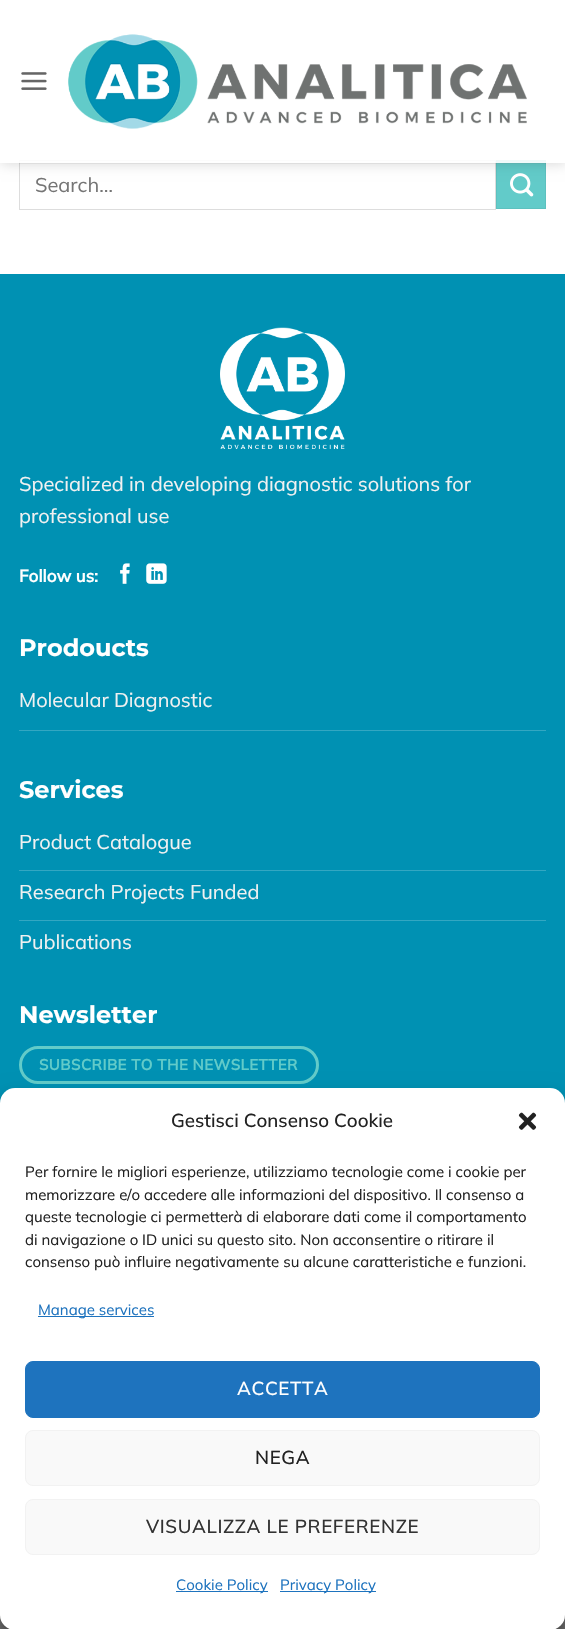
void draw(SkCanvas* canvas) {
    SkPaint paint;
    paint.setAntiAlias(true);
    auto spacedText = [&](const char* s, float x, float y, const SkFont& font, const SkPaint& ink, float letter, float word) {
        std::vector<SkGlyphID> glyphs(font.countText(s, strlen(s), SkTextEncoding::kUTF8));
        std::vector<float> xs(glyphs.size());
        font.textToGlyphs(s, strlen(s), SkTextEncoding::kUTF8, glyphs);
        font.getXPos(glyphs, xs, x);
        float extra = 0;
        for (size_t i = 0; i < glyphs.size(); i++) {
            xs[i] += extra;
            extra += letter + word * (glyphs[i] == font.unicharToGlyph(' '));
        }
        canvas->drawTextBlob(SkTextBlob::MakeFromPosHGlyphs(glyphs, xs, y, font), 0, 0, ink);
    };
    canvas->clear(0xFFFFFFFF);
    paint.setStyle(SkPaint::kStroke_Style);
    paint.setStrokeWidth(1);
    paint.setColor(0xFFDDDDDD);
    canvas->drawRect(SkRect::MakeXYWH(19.5f, 160.5f, 476, 49), paint);
    paint.setStyle(SkPaint::kFill_Style);
    paint.setColor(0xFF62CBC9);
    canvas->drawRect(SkRect::MakeXYWH(496.5f, 160.5f, 49, 48), paint);
    paint.setStyle(SkPaint::kStroke_Style);
    paint.setColor(0xFF5DC1BF);
    canvas->drawRect(SkRect::MakeXYWH(496.5f, 160.5f, 49, 48), paint);
    canvas->drawImageRect(SkImages::DeferredFromEncodedData(SkData::MakeFromFileName("img3.png")), SkRect::MakeXYWH(510, 173, 24, 24), SkSamplingOptions());
    canvas->save();
    canvas->clipPath(SkPathBuilder(SkPathFillType::kEvenOdd).moveTo(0, 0).lineTo(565, 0).lineTo(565, 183).lineTo(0, 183).close().moveTo(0, 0).lineTo(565, 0).lineTo(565, 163).lineTo(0, 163).close().detach(), true);
    paint.setStyle(SkPaint::kFill_Style);
    paint.setColor(0x26000000);
    paint.setMaskFilter(SkMaskFilter::MakeBlur(kNormal_SkBlurStyle, 6));
    canvas->drawRect(SkRect::MakeXYWH(1, 1, 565, 163), paint);
    paint.setMaskFilter(nullptr);
    canvas->restore();
    canvas->drawImageRect(SkImages::DeferredFromEncodedData(SkData::MakeFromFileName("img1.png")), SkRect::MakeXYWH(21, 72, 26, 18), SkSamplingOptions());
    canvas->drawImageRect(SkImages::DeferredFromEncodedData(SkData::MakeFromFileName("img2.png")), SkRect::MakeXYWH(68, 34, 459, 95), SkSamplingOptions());
    paint.setColor(0x1A727272);
    canvas->drawRect(SkRect::MakeXYWH(19, 163, 527, 1), paint);
    paint.setColor(0xE6FFFFFF);
    canvas->drawRect(SkRect::MakeXYWH(0, 160, 565, 3), paint);
    SkFont font1(fontMgr->matchFamilyStyle("Mulish", SkFontStyle::Normal()), 20);
    font1.setSubpixel(true);
    paint.setColor(0xFF757575);
    canvas->drawString("Search…", 35, 192, font1, paint);
    paint.setColor(0xFF0091B3);
    canvas->drawRect(SkRect::MakeXYWH(0, 274, 565, 829), paint);
    canvas->drawImageRect(SkImages::DeferredFromEncodedData(SkData::MakeFromFileName("img4.png")), SkRect::MakeXYWH(220, 327, 125, 122), SkSamplingOptions());
    paint.setColor(0xFFF1F1F1);
    canvas->drawString("Specialized in developing diagnostic solutions for", 19, 491, font1, paint);
    canvas->drawString("professional use", 19, 523, font1, paint);
    SkFont font2(fontMgr->matchFamilyStyle("Mulish", SkFontStyle::Bold()), 17);
    font2.setSubpixel(true);
    paint.setColor(0xFFFFFFFF);
    canvas->drawString("Follow us:", 19, 582, font2, paint);
    canvas->drawImageRect(SkImages::DeferredFromEncodedData(SkData::MakeFromFileName("img5.png")), SkRect::MakeXYWH(120, 563, 10, 21), SkSamplingOptions());
    canvas->drawImageRect(SkImages::DeferredFromEncodedData(SkData::MakeFromFileName("img6.png")), SkRect::MakeXYWH(146, 563, 21, 21), SkSamplingOptions());
    SkFont font3(fontMgr->matchFamilyStyle("Montserrat", SkFontStyle(100, SkFontStyle::kNormal_Width, SkFontStyle::kUpright_Slant)), 24);
    font3.setSubpixel(true);
    canvas->drawString("Prodoucts", 19, 656, font3, paint);
    paint.setColor(0xFF33A7C2);
    canvas->drawRect(SkRect::MakeXYWH(19, 730, 527, 1), paint);
    paint.setColor(0xFFF1F1F1);
    canvas->drawString("Molecular Diagnostic", 19, 707, font1, paint);
    paint.setColor(0xFFFFFFFF);
    canvas->drawString("Services", 19, 798, font3, paint);
    paint.setColor(0xFF33A7C2);
    canvas->drawRect(SkRect::MakeXYWH(19, 870, 527, 1), paint);
    paint.setColor(0xFFF1F1F1);
    canvas->drawString("Product Catalogue", 19, 849, font1, paint);
    paint.setColor(0xFF33A7C2);
    canvas->drawRect(SkRect::MakeXYWH(19, 920, 527, 1), paint);
    paint.setColor(0xFFF1F1F1);
    canvas->drawString("Research Projects Funded", 19, 899, font1, paint);
    canvas->drawString("Publications", 19, 949, font1, paint);
    paint.setColor(0xFFFFFFFF);
    canvas->drawString("Newsletter", 19, 1023, font3, paint);
    paint.setStyle(SkPaint::kStroke_Style);
    paint.setStrokeWidth(3);
    paint.setColor(0xFF62CBC9);
    canvas->drawRoundRect(SkRect::MakeXYWH(20.5f, 1047.5f, 297, 35), 17.5f, 17.5f, paint);
    SkFont font4(fontMgr->matchFamilyStyle("Mulish", SkFontStyle::Bold()), 15);
    font4.setSubpixel(true);
    paint.setStyle(SkPaint::kFill_Style);
    spacedText("SUBSCRIBE TO THE NEWSLETTER", 39, 1070, font4, paint, 0.45f, 0);
    paint.setColor(0xFF727272);
    canvas->drawRect(SkRect::MakeXYWH(0, 1615, 565, 14), paint);
    paint.setColor(0x3B000000);
    paint.setMaskFilter(SkMaskFilter::MakeBlur(kNormal_SkBlurStyle, 4));
    canvas->drawRoundRect(SkRect::MakeXYWH(0, 1095, 565, 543), 15, 15, paint);
    paint.setMaskFilter(nullptr);
    paint.setColor(0x30000000);
    paint.setMaskFilter(SkMaskFilter::MakeBlur(kNormal_SkBlurStyle, 12.5f));
    canvas->drawRoundRect(SkRect::MakeXYWH(0, 1100, 565, 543), 15, 15, paint);
    paint.setMaskFilter(nullptr);
    paint.setColor(0xFF808080);
    paint.setMaskFilter(SkMaskFilter::MakeBlur(kNormal_SkBlurStyle, 3));
    canvas->drawRoundRect(SkRect::MakeXYWH(478, 1538, 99, 75), 2.5f, 2.5f, paint);
    paint.setMaskFilter(nullptr);
    paint.setColor(0xFFFFFFFF);
    canvas->drawRoundRect(SkRect::MakeXYWH(0, 1088, 565, 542), 15, 15, paint);
    SkFont font5(fontMgr->matchFamilyStyle("Mulish", SkFontStyle(500, SkFontStyle::kNormal_Width, SkFontStyle::kUpright_Slant)), 18.75f);
    font5.setSubpixel(true);
    paint.setColor(0xFF222222);
    canvas->drawString("Gestisci Consenso Cookie", 171, 1127, font5, paint);
    canvas->drawImageRect(SkImages::DeferredFromEncodedData(SkData::MakeFromFileName("img7.png")), SkRect::MakeXYWH(518, 1112, 19, 18), SkSamplingOptions());
    SkFont font6(fontMgr->matchFamilyStyle("Mulish", SkFontStyle::Normal()), 15);
    font6.setSubpixel(true);
    canvas->drawString("Per fornire le migliori esperienze, utilizziamo tecnologie come i cookie per", 25, 1177, font6, paint);
    canvas->drawString("memorizzare e/o accedere alle informazioni del dispositivo. Il consenso a", 25, 1200, font6, paint);
    canvas->drawString("queste tecnologie ci permetterà di elaborare dati come il comportamento", 25, 1222, font6, paint);
    canvas->drawString("di navigazione o ID unici su questo sito. Non acconsentire o ritirare il", 25, 1245, font6, paint);
    canvas->drawString("consenso può influire negativamente su alcune caratteristiche e funzioni.", 25, 1267, font6, paint);
    paint.setColor(0xFF1E73BE);
    canvas->drawRect(SkRect::MakeXYWH(38, 1316, 116, 1), paint);
    canvas->drawString("Manage services", 38, 1315, font6, paint);
    canvas->drawRoundRect(SkRect::MakeXYWH(25.5f, 1361.5f, 514, 56), 7.5f, 7.5f, paint);
    paint.setStyle(SkPaint::kStroke_Style);
    paint.setStrokeWidth(1);
    canvas->drawRoundRect(SkRect::MakeXYWH(25.5f, 1361.5f, 514, 56), 7.5f, 7.5f, paint);
    paint.setStyle(SkPaint::kFill_Style);
    paint.setColor(0xFFFFFFFF);
    spacedText("ACCETTA", 237, 1395, font5, paint, 0.6f, 0);
    paint.setColor(0xFFF9F9F9);
    canvas->drawRoundRect(SkRect::MakeXYWH(25.5f, 1430.5f, 514, 55), 7.5f, 7.5f, paint);
    paint.setStyle(SkPaint::kStroke_Style);
    paint.setColor(0xFFF2F2F2);
    canvas->drawRoundRect(SkRect::MakeXYWH(25.5f, 1430.5f, 514, 55), 7.5f, 7.5f, paint);
    paint.setStyle(SkPaint::kFill_Style);
    paint.setColor(0xFF222222);
    spacedText("NEGA", 255, 1464, font5, paint, 0.6f, 0);
    paint.setColor(0xFFF9F9F9);
    canvas->drawRoundRect(SkRect::MakeXYWH(25.5f, 1499.5f, 514, 55), 7.5f, 7.5f, paint);
    paint.setStyle(SkPaint::kStroke_Style);
    paint.setColor(0xFFF2F2F2);
    canvas->drawRoundRect(SkRect::MakeXYWH(25.5f, 1499.5f, 514, 55), 7.5f, 7.5f, paint);
    paint.setStyle(SkPaint::kFill_Style);
    paint.setColor(0xFF333333);
    spacedText("VISUALIZZA LE PREFERENZE", 146, 1533, font5, paint, 0.6f, 0);
    paint.setColor(0xFF1E73BE);
    canvas->drawRect(SkRect::MakeXYWH(176, 1591, 92, 1), paint);
    canvas->drawString("Cookie Policy", 176, 1590, font6, paint);
    canvas->drawRect(SkRect::MakeXYWH(280, 1591, 96, 1), paint);
    canvas->drawString("Privacy Policy", 280, 1590, font6, paint);
}
